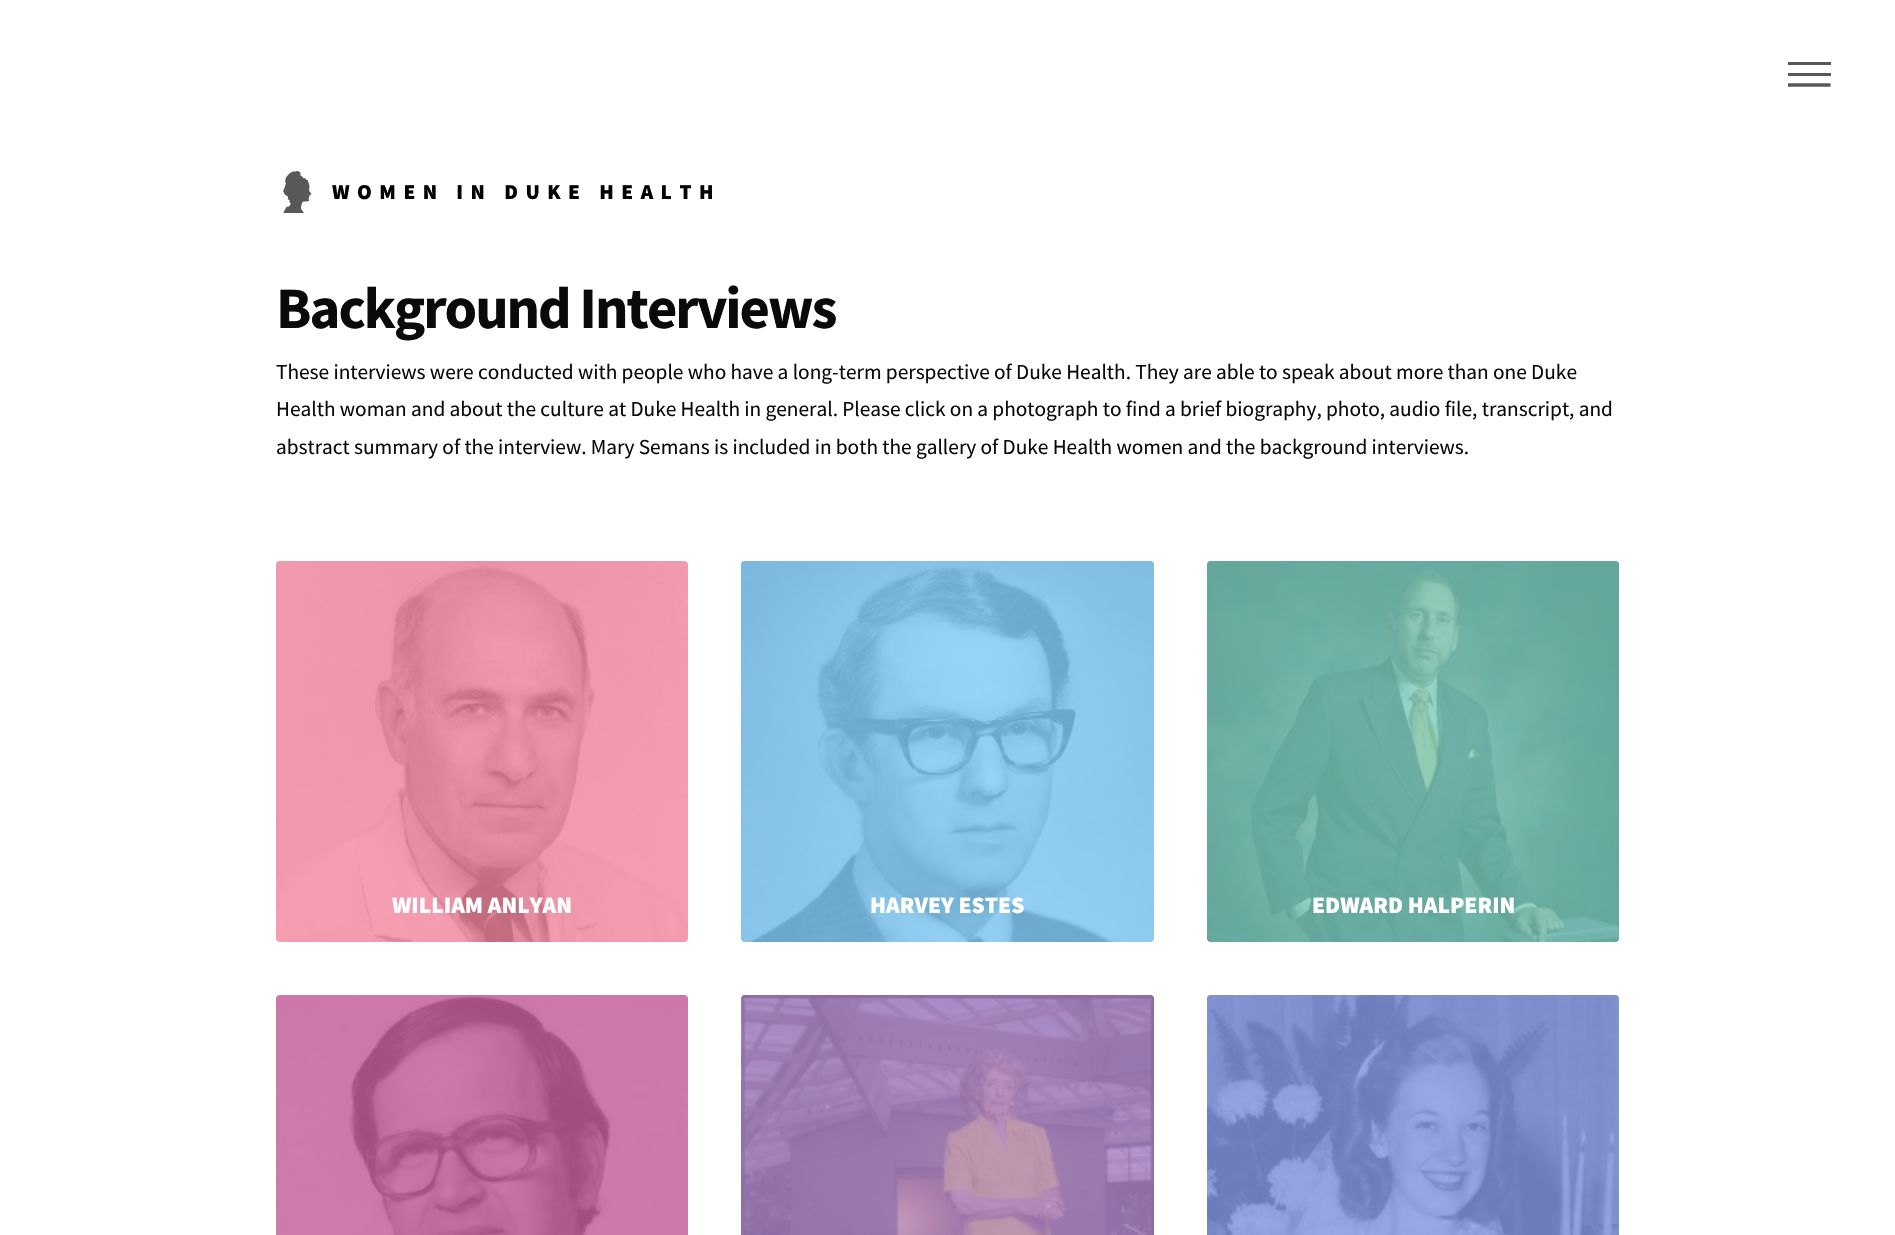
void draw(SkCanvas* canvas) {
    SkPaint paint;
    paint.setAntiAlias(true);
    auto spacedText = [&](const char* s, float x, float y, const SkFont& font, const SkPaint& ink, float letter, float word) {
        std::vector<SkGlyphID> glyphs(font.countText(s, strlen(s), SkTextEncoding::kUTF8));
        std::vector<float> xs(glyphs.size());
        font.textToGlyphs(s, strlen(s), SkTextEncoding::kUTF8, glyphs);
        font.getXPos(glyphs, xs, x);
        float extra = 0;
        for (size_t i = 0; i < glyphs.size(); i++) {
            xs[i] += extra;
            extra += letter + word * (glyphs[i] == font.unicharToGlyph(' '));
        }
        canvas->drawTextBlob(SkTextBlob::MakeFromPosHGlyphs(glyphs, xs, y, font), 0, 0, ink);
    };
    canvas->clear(0xFFFFFFFF);
    paint.setColor(0xFF585858);
    canvas->drawRect(SkRect::MakeXYWH(1788, 62, 43, 3), paint);
    canvas->drawRect(SkRect::MakeXYWH(1788, 73, 43, 3), paint);
    paint.setStyle(SkPaint::kStroke_Style);
    paint.setStrokeWidth(3.4f);
    canvas->drawPath(SkPathBuilder().moveTo(1788, 85).lineTo(1830.5f, 85).detach(), paint);
    canvas->drawImageRect(SkImages::DeferredFromEncodedData(SkData::MakeFromFileName("img1.png")), SkRect::MakeXYWH(283, 171, 29, 42), SkSamplingOptions());
    SkFont font1(fontMgr->matchFamilyStyle("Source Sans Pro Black", SkFontStyle(900, SkFontStyle::kNormal_Width, SkFontStyle::kUpright_Slant)), 21.33f);
    font1.setSubpixel(true);
    paint.setStyle(SkPaint::kFill_Style);
    paint.setColor(0xFF000000);
    spacedText("WOMEN IN DUKE HEALTH", 332, 199, font1, paint, 7.5f, 0);
    SkFont font2(fontMgr->matchFamilyStyle("Source Sans Pro", SkFontStyle::Bold()), 58.75f);
    font2.setSubpixel(true);
    paint.setColor(0xFF0A0A0A);
    spacedText("Background Interviews", 276, 328, font2, paint, -2.05f, 0);
    SkFont font3(fontMgr->matchFamilyStyle("Source Sans Pro", SkFontStyle::Normal()), 21.33f);
    font3.setSubpixel(true);
    canvas->drawString("These interviews were conducted with people who have a long-term perspective of Duke Health. They are able to speak about more than one Duke", 276, 379, font3, paint);
    canvas->drawString("Health woman and about the culture at Duke Health in general. Please click on a photograph to find a brief biography, photo, audio file, transcript, and", 276, 416, font3, paint);
    canvas->drawString("abstract summary of the interview. Mary Semans is included in both the gallery of Duke Health women and the background interviews.", 276, 454, font3, paint);
    canvas->drawImageRect(SkImages::DeferredFromEncodedData(SkData::MakeFromFileName("img2.png")), SkRect::MakeXYWH(276, 561, 412, 381), SkSamplingOptions());
    paint.setColor(0xCCF2849E);
    canvas->drawRoundRect(SkRect::MakeXYWH(276, 561, 412, 381), 4, 4, paint);
    SkFont font4(fontMgr->matchFamilyStyle("Source Sans Pro Black", SkFontStyle(900, SkFontStyle::kNormal_Width, SkFontStyle::kUpright_Slant)), 23.5f);
    font4.setSubpixel(true);
    paint.setColor(0xFFFFFFFF);
    canvas->drawString("WILLIAM ANLYAN", 392, 913, font4, paint);
    canvas->drawImageRect(SkImages::DeferredFromEncodedData(SkData::MakeFromFileName("img3.png")), SkRect::MakeXYWH(741, 561, 413, 381), SkSamplingOptions());
    paint.setColor(0xCC7ECAF6);
    canvas->drawRoundRect(SkRect::MakeXYWH(741, 561, 413, 381), 4, 4, paint);
    paint.setColor(0xFFFFFFFF);
    canvas->drawString("HARVEY ESTES", 870, 913, font4, paint);
    canvas->drawImageRect(SkImages::DeferredFromEncodedData(SkData::MakeFromFileName("img4.png")), SkRect::MakeXYWH(1207, 561, 412, 381), SkSamplingOptions());
    paint.setColor(0xCC7BD0C1);
    canvas->drawRoundRect(SkRect::MakeXYWH(1207, 561, 412, 381), 4, 4, paint);
    paint.setColor(0xFFFFFFFF);
    canvas->drawString("EDWARD HALPERIN", 1312, 913, font4, paint);
    canvas->drawImageRect(SkImages::DeferredFromEncodedData(SkData::MakeFromFileName("img5.png")), SkRect::MakeXYWH(276, 995, 412, 240), SkSamplingOptions());
    paint.setColor(0xCCC75B9B);
    canvas->drawRoundRect(SkRect::MakeXYWH(276, 995, 412, 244), 4, 4, paint);
    canvas->drawImageRect(SkImages::DeferredFromEncodedData(SkData::MakeFromFileName("img6.png")), SkRect::MakeXYWH(741, 995, 413, 240), SkSamplingOptions());
    paint.setColor(0xCCAE85CA);
    canvas->drawRoundRect(SkRect::MakeXYWH(741, 995, 413, 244), 4, 4, paint);
    canvas->drawImageRect(SkImages::DeferredFromEncodedData(SkData::MakeFromFileName("img7.png")), SkRect::MakeXYWH(1207, 995, 412, 240), SkSamplingOptions());
    paint.setColor(0xCC8499E7);
    canvas->drawRoundRect(SkRect::MakeXYWH(1207, 995, 412, 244), 4, 4, paint);
}
